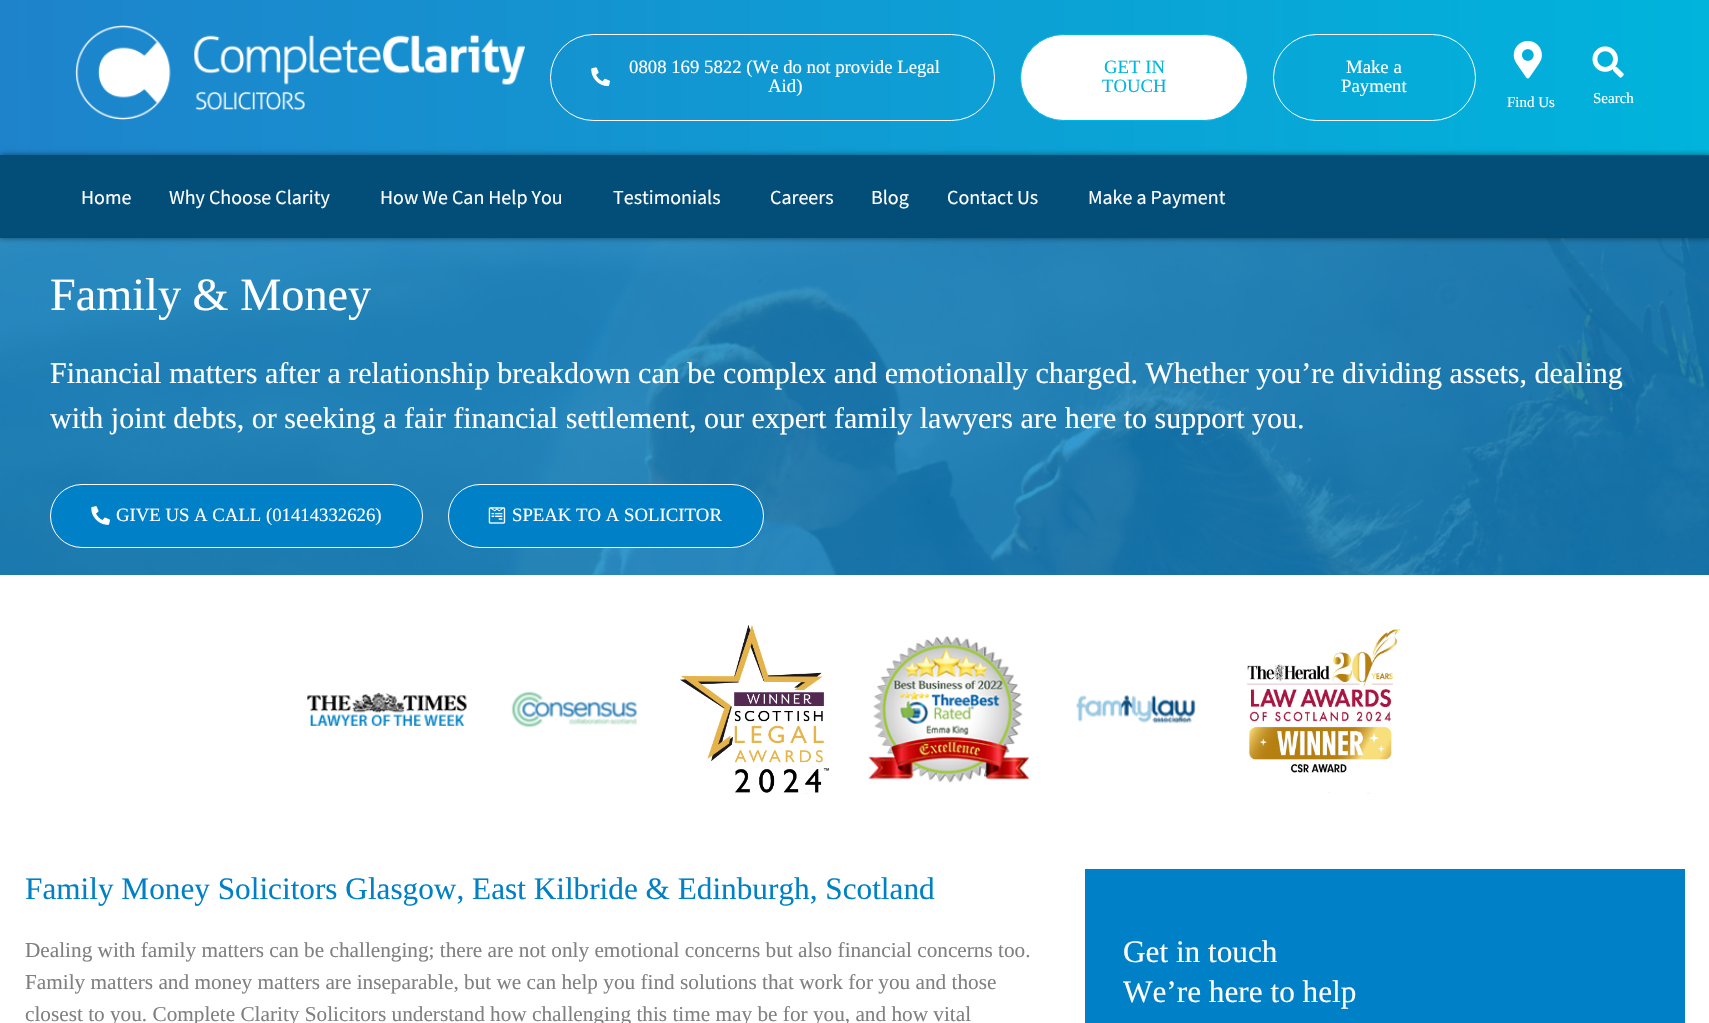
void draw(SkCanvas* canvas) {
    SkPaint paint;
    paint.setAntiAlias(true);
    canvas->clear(0xFFFFFFFF);
    {
        const SkColor colors[] = {0xFF1E83CB, 0xFF00B4DC};
        const float stops[] = {0, 1};
        const SkPoint ends[] = {{0, 78}, {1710, 77}};
        paint.setShader(SkGradientShader::MakeLinear(ends, colors, stops, 2, SkTileMode::kClamp));
        paint.setAlpha(255);
    }
    canvas->drawRect(SkRect::MakeXYWH(0, 0, 1709, 155), paint);
    canvas->drawImageRect(SkImages::DeferredFromEncodedData(SkData::MakeFromFileName("img1.png")), SkRect::MakeXYWH(75, 25, 450, 95), SkSamplingOptions());
    paint.setStyle(SkPaint::kStroke_Style);
    paint.setStrokeWidth(1);
    paint.setShader(nullptr);
    paint.setColor(0xFFFFFFFF);
    canvas->drawRoundRect(SkRect::MakeXYWH(550.5f, 34.5f, 444, 86), 43, 43, paint);
    canvas->drawImageRect(SkImages::DeferredFromEncodedData(SkData::MakeFromFileName("img2.png")), SkRect::MakeXYWH(591, 67, 19, 20), SkSamplingOptions());
    SkFont font1(fontMgr->matchFamilyStyle("Liberation Serif", SkFontStyle::Normal()), 18.75f);
    font1.setSubpixel(true);
    paint.setStyle(SkPaint::kFill_Style);
    canvas->drawString("0808 169 5822 (We do not provide Legal", 629, 73, font1, paint);
    canvas->drawString("Aid)", 768, 92, font1, paint);
    canvas->drawRoundRect(SkRect::MakeXYWH(1020.5f, 34.5f, 227, 86), 43, 43, paint);
    paint.setStyle(SkPaint::kStroke_Style);
    paint.setColor(0xFF00B6DD);
    canvas->drawRoundRect(SkRect::MakeXYWH(1020.5f, 34.5f, 227, 86), 43, 43, paint);
    paint.setStyle(SkPaint::kFill_Style);
    canvas->drawString("GET IN", 1104, 73, font1, paint);
    canvas->drawString("TOUCH", 1102, 92, font1, paint);
    paint.setStyle(SkPaint::kStroke_Style);
    paint.setColor(0xFFFFFFFF);
    canvas->drawRoundRect(SkRect::MakeXYWH(1273.5f, 34.5f, 202, 86), 43, 43, paint);
    paint.setStyle(SkPaint::kFill_Style);
    canvas->drawString("Make a", 1346, 73, font1, paint);
    canvas->drawString("Payment", 1341, 92, font1, paint);
    canvas->drawImageRect(SkImages::DeferredFromEncodedData(SkData::MakeFromFileName("img3.png")), SkRect::MakeXYWH(1513, 41, 29, 38), SkSamplingOptions());
    SkFont font2(fontMgr->matchFamilyStyle("Liberation Serif", SkFontStyle::Normal()), 15);
    font2.setSubpixel(true);
    canvas->drawString("Find Us", 1507, 107, font2, paint);
    canvas->drawImageRect(SkImages::DeferredFromEncodedData(SkData::MakeFromFileName("img4.png")), SkRect::MakeXYWH(1592, 46, 32, 32), SkSamplingOptions());
    canvas->drawString("Search", 1593, 103, font2, paint);
    canvas->drawImageRect(SkImages::DeferredFromEncodedData(SkData::MakeFromFileName("img5.png")), SkRect::MakeXYWH(0, 238, 1709, 337), SkSamplingOptions());
    paint.setColor(0x80000000);
    paint.setMaskFilter(SkMaskFilter::MakeBlur(kNormal_SkBlurStyle, 3));
    canvas->drawRect(SkRect::MakeXYWH(0, 155, 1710, 83), paint);
    paint.setMaskFilter(nullptr);
    paint.setColor(0xFF034E78);
    canvas->drawRect(SkRect::MakeXYWH(0, 155, 1709, 83), paint);
    SkFont font3(fontMgr->matchFamilyStyle("Source Sans Pro", SkFontStyle::Normal()), 20);
    font3.setSubpixel(true);
    paint.setColor(0xFFFFFFFF);
    canvas->drawString("Home", 81, 204, font3, paint);
    canvas->drawString("Why Choose Clarity", 169, 204, font3, paint);
    canvas->drawString("How We Can Help You", 380, 204, font3, paint);
    canvas->drawString("Testimonials", 613, 204, font3, paint);
    canvas->drawString("Careers", 770, 204, font3, paint);
    canvas->drawString("Blog", 871, 204, font3, paint);
    canvas->drawString("Contact Us", 947, 204, font3, paint);
    canvas->drawString("Make a Payment", 1088, 204, font3, paint);
    SkFont font4(fontMgr->matchFamilyStyle("Liberation Serif", SkFontStyle::Normal()), 46.25f);
    font4.setSubpixel(true);
    canvas->drawString("Family & Money", 50, 310, font4, paint);
    SkFont font5(fontMgr->matchFamilyStyle("Liberation Serif", SkFontStyle::Normal()), 30);
    font5.setSubpixel(true);
    canvas->drawString("Financial matters after a relationship breakdown can be complex and emotionally charged. Whether you’re dividing assets, dealing", 50, 383, font5, paint);
    canvas->drawString("with joint debts, or seeking a fair financial settlement, our expert family lawyers are here to support you.", 50, 428, font5, paint);
    paint.setColor(0xFF0080C7);
    canvas->drawRoundRect(SkRect::MakeXYWH(50.5f, 484.5f, 372, 63), 31.5f, 31.5f, paint);
    paint.setStyle(SkPaint::kStroke_Style);
    paint.setColor(0xFFFFFFFF);
    canvas->drawRoundRect(SkRect::MakeXYWH(50.5f, 484.5f, 372, 63), 31.5f, 31.5f, paint);
    canvas->drawImageRect(SkImages::DeferredFromEncodedData(SkData::MakeFromFileName("img6.png")), SkRect::MakeXYWH(91, 506, 19, 19), SkSamplingOptions());
    paint.setStyle(SkPaint::kFill_Style);
    canvas->drawString("GIVE US A CALL (01414332626)", 116, 521, font1, paint);
    paint.setColor(0xFF0080C7);
    canvas->drawRoundRect(SkRect::MakeXYWH(448.5f, 484.5f, 315, 63), 31.5f, 31.5f, paint);
    paint.setStyle(SkPaint::kStroke_Style);
    paint.setColor(0xFFFFFFFF);
    canvas->drawRoundRect(SkRect::MakeXYWH(448.5f, 484.5f, 315, 63), 31.5f, 31.5f, paint);
    canvas->drawImageRect(SkImages::DeferredFromEncodedData(SkData::MakeFromFileName("img7.png")), SkRect::MakeXYWH(488, 507, 18, 17), SkSamplingOptions());
    paint.setStyle(SkPaint::kFill_Style);
    canvas->drawString("SPEAK TO A SOLICITOR", 512, 521, font1, paint);
    canvas->drawImageRect(SkImages::DeferredFromEncodedData(SkData::MakeFromFileName("img8.png")), SkRect::MakeXYWH(307, 692, 160, 34), SkSamplingOptions());
    canvas->drawImageRect(SkImages::DeferredFromEncodedData(SkData::MakeFromFileName("img9.png")), SkRect::MakeXYWH(511, 691, 126, 36), SkSamplingOptions());
    canvas->drawImageRect(SkImages::DeferredFromEncodedData(SkData::MakeFromFileName("img10.png")), SkRect::MakeXYWH(680, 625, 150, 169), SkSamplingOptions());
    canvas->drawImageRect(SkImages::DeferredFromEncodedData(SkData::MakeFromFileName("img11.png")), SkRect::MakeXYWH(868, 636, 161, 147), SkSamplingOptions());
    canvas->drawImageRect(SkImages::DeferredFromEncodedData(SkData::MakeFromFileName("img12.png")), SkRect::MakeXYWH(1076, 695, 120, 29), SkSamplingOptions());
    canvas->drawImageRect(SkImages::DeferredFromEncodedData(SkData::MakeFromFileName("img13.png")), SkRect::MakeXYWH(1245, 628, 156, 166), SkSamplingOptions());
    SkFont font6(fontMgr->matchFamilyStyle("Liberation Serif", SkFontStyle::Normal()), 31.25f);
    font6.setSubpixel(true);
    paint.setColor(0xFF0080C7);
    canvas->drawString("Family Money Solicitors Glasgow, East Kilbride & Edinburgh, Scotland", 25, 899, font6, paint);
    SkFont font7(fontMgr->matchFamilyStyle("Liberation Serif", SkFontStyle::Normal()), 21.25f);
    font7.setSubpixel(true);
    paint.setColor(0xFF808080);
    canvas->drawString("Dealing with family matters can be challenging; there are not only emotional concerns but also financial concerns too.", 25, 957, font7, paint);
    canvas->drawString("Family matters and money matters are inseparable, but we can help you find solutions that work for you and those", 25, 989, font7, paint);
    canvas->drawString("closest to you. Complete Clarity Solicitors understand how challenging this time may be for you, and how vital", 25, 1021, font7, paint);
    paint.setColor(0xFF0080C7);
    canvas->drawRect(SkRect::MakeXYWH(1085, 869, 600, 154), paint);
    paint.setColor(0xFFFFFFFF);
    canvas->drawString("Get in touch", 1123, 962, font6, paint);
    canvas->drawString("We’re here to help", 1123, 1002, font6, paint);
}
